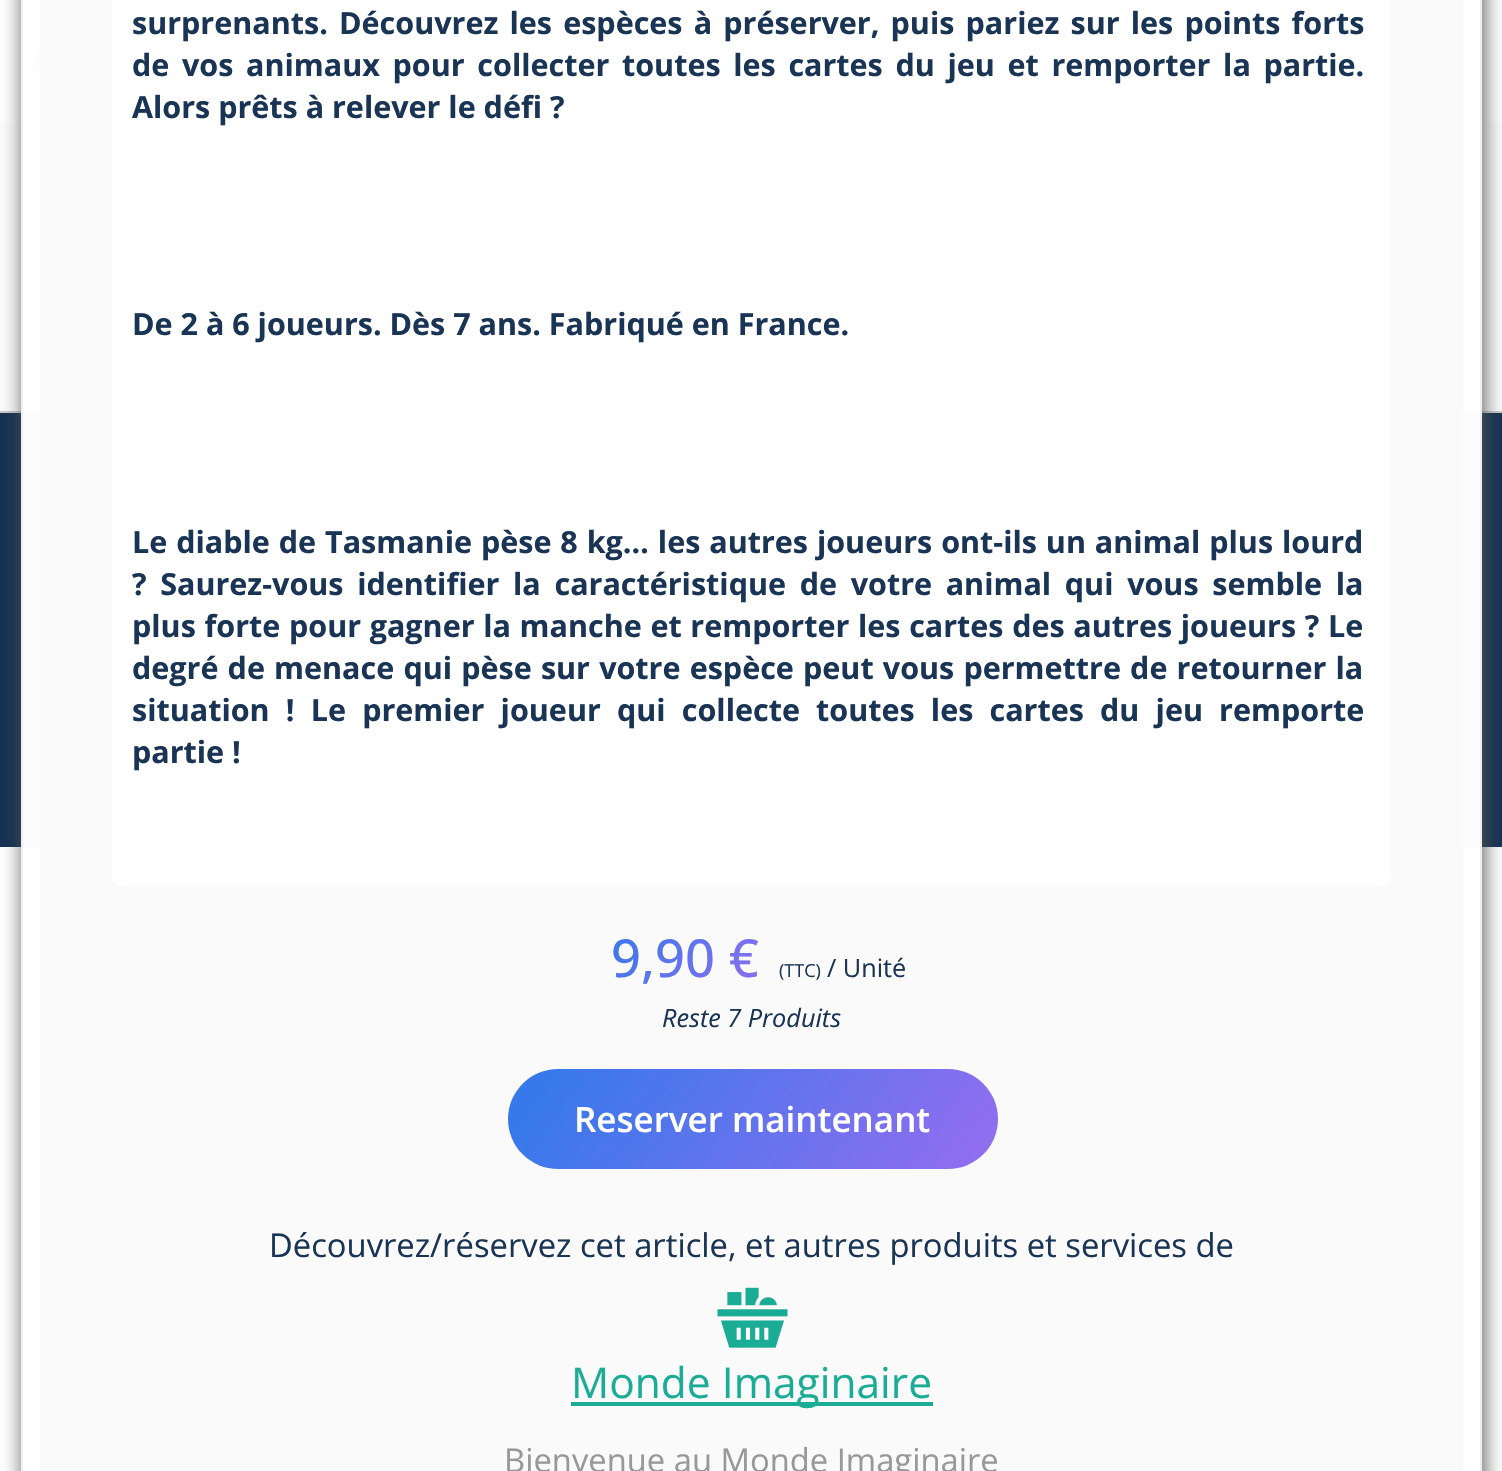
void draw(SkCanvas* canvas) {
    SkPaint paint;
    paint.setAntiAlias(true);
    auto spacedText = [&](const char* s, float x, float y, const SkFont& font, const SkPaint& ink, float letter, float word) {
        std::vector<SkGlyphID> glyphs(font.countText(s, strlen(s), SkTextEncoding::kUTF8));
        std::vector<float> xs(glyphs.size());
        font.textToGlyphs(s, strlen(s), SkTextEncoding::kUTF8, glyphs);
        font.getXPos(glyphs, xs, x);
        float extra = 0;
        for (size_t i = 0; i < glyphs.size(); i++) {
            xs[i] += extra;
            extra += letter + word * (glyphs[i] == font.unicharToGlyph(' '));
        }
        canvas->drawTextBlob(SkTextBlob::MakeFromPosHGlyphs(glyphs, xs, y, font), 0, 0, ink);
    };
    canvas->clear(0xFFFFFFFF);
    canvas->drawImageRect(SkImages::DeferredFromEncodedData(SkData::MakeFromFileName("img1.png")), SkRect::MakeXYWH(32, 44, 80, 48), SkSamplingOptions());
    paint.setColor(0xFFFCFCFC);
    canvas->drawRect(SkRect::MakeXYWH(0, 123, 1502, 288), paint);
    paint.setColor(0xFFFFFFFF);
    canvas->drawRect(SkRect::MakeXYWH(21, 123, 1461, 288), paint);
    paint.setColor(0xFF143051);
    canvas->drawRect(SkRect::MakeXYWH(0, 413, 1502, 434), paint);
    paint.setColor(0xFFFAFBFC);
    canvas->drawRect(SkRect::MakeXYWH(21, 413, 1461, 434), paint);
    paint.setColor(0xFFCCCCCC);
    canvas->drawRect(SkRect::MakeXYWH(0, 411, 1502, 2), paint);
    paint.setColor(0xFFFEFEFE);
    canvas->drawRect(SkRect::MakeXYWH(21, 411, 1461, 2), paint);
    canvas->save();
    canvas->clipPath(SkPathBuilder(SkPathFillType::kEvenOdd).moveTo(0, 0).lineTo(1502, 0).lineTo(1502, 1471).lineTo(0, 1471).close().moveTo(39, -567).lineTo(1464, -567).cubicTo(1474, -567, 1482, -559, 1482, -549).lineTo(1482, 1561).cubicTo(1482, 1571, 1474, 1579, 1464, 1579).lineTo(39, 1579).cubicTo(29, 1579, 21, 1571, 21, 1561).lineTo(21, -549).cubicTo(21, -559, 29, -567, 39, -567).close().detach(), true);
    paint.setColor(0xFA555555);
    paint.setMaskFilter(SkMaskFilter::MakeBlur(kNormal_SkBlurStyle, 10.5f));
    canvas->drawRoundRect(SkRect::MakeXYWH(23, -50, 1461, 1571), 18, 18, paint);
    paint.setMaskFilter(nullptr);
    canvas->restore();
    paint.setStyle(SkPaint::kStroke_Style);
    paint.setStrokeWidth(2);
    paint.setColor(0xFAEFEFEF);
    canvas->drawRect(SkRect::MakeXYWH(22, -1, 1459, 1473), paint);
    paint.setStyle(SkPaint::kFill_Style);
    paint.setColor(0xFAFAFAFA);
    canvas->drawRect(SkRect::MakeXYWH(40, 0, 1423, 1471), paint);
    paint.setColor(0xFFFFFFFF);
    canvas->drawRoundRect(SkRect::MakeXYWH(112, -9, 1279, 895), 9, 9, paint);
    SkFont font1(fontMgr->matchFamilyStyle("Open Sans", SkFontStyle::Bold()), 30.5f);
    font1.setSubpixel(true);
    paint.setColor(0xFF193454);
    spacedText("surprenants. Découvrez les espèces à préserver, puis pariez sur les points forts", 132, 34, font1, paint, 0, 3.25f);
    spacedText("de vos animaux pour collecter toutes les cartes du jeu et remporter la partie.", 132, 76, font1, paint, 0, 4.75f);
    canvas->drawString("Alors prêts à relever le défi ?", 132, 118, font1, paint);
    canvas->drawString("De 2 à 6 joueurs. Dès 7 ans. Fabriqué en France.", 132, 335, font1, paint);
    spacedText("Le diable de Tasmanie pèse 8 kg… les autres joueurs ont-ils un animal plus lourd", 132, 553, font1, paint, 0, 1);
    spacedText("? Saurez-vous identifier la caractéristique de votre animal qui vous semble la", 132, 595, font1, paint, 0, 5.75f);
    spacedText("plus forte pour gagner la manche et remporter les cartes des autres joueurs ? Le", 132, 637, font1, paint, 0, 0.75f);
    spacedText("degré de menace qui pèse sur votre espèce peut vous permettre de retourner la", 132, 679, font1, paint, 0, 1.25f);
    spacedText("situation ! Le premier joueur qui collecte toutes les cartes du jeu remporte", 132, 721, font1, paint, 0, 8.25f);
    canvas->drawString("partie !", 132, 763, font1, paint);
    SkFont font2(fontMgr->matchFamilyStyle("Open Sans", SkFontStyle(500, SkFontStyle::kNormal_Width, SkFontStyle::kUpright_Slant)), 52.5f);
    font2.setSubpixel(true);
    {
        const SkColor colors[] = {0xFF3779EA, 0xFFA76BF2};
        const float stops[] = {0.07f, 1};
        const SkPoint ends[] = {{605, 900}, {792, 1032}};
        paint.setShader(SkGradientShader::MakeLinear(ends, colors, stops, 2, SkTileMode::kClamp));
        paint.setAlpha(255);
    }
    canvas->drawString("9,90 €", 611, 977, font2, paint);
    SkFont font3(fontMgr->matchFamilyStyle("Open Sans", SkFontStyle::Normal()), 18);
    font3.setSubpixel(true);
    paint.setShader(nullptr);
    paint.setColor(0xFF193454);
    canvas->drawString("(TTC)", 779, 977, font3, paint);
    SkFont font4(fontMgr->matchFamilyStyle("Open Sans", SkFontStyle::Normal()), 25.25f);
    font4.setSubpixel(true);
    canvas->drawString("/ Unité", 827, 977, font4, paint);
    SkFont font5(fontMgr->matchFamilyStyle("Open Sans", SkFontStyle::Italic()), 25.25f);
    font5.setSubpixel(true);
    canvas->drawString("Reste 7 Produits", 662, 1027, font5, paint);
    {
        const SkColor colors[] = {0xFF3779EA, 0xFFA76BF2};
        const float stops[] = {0.07f, 1};
        const SkPoint ends[] = {{565, 987}, {1005, 1296}};
        paint.setShader(SkGradientShader::MakeLinear(ends, colors, stops, 2, SkTileMode::kClamp));
        paint.setAlpha(255);
    }
    canvas->drawRoundRect(SkRect::MakeXYWH(508, 1069, 490, 100), 50, 50, paint);
    SkFont font6(fontMgr->matchFamilyStyle("Open Sans", SkFontStyle(600, SkFontStyle::kNormal_Width, SkFontStyle::kUpright_Slant)), 35);
    font6.setSubpixel(true);
    paint.setShader(nullptr);
    paint.setColor(0xFFFFFFFF);
    canvas->drawString("Reserver maintenant", 574, 1132, font6, paint);
    SkFont font7(fontMgr->matchFamilyStyle("Open Sans", SkFontStyle::Normal()), 32.75f);
    font7.setSubpixel(true);
    paint.setColor(0xFF193454);
    canvas->drawString("Découvrez/réservez cet article, et autres produits et services de", 269, 1257, font7, paint);
    canvas->drawImageRect(SkImages::DeferredFromEncodedData(SkData::MakeFromFileName("img2.png")), SkRect::MakeXYWH(717, 1287, 71, 61), SkSamplingOptions());
    paint.setColor(0xFF1BAC95);
    canvas->drawRect(SkRect::MakeXYWH(571, 1402, 362, 4), paint);
    SkFont font8(fontMgr->matchFamilyStyle("Open Sans", SkFontStyle::Normal()), 42.5f);
    font8.setSubpixel(true);
    canvas->drawString("Monde Imaginaire", 571, 1398, font8, paint);
    paint.setColor(0xFF989898);
    canvas->drawString("Bienvenue au Monde Imaginaire", 504, 1472, font7, paint);
}
